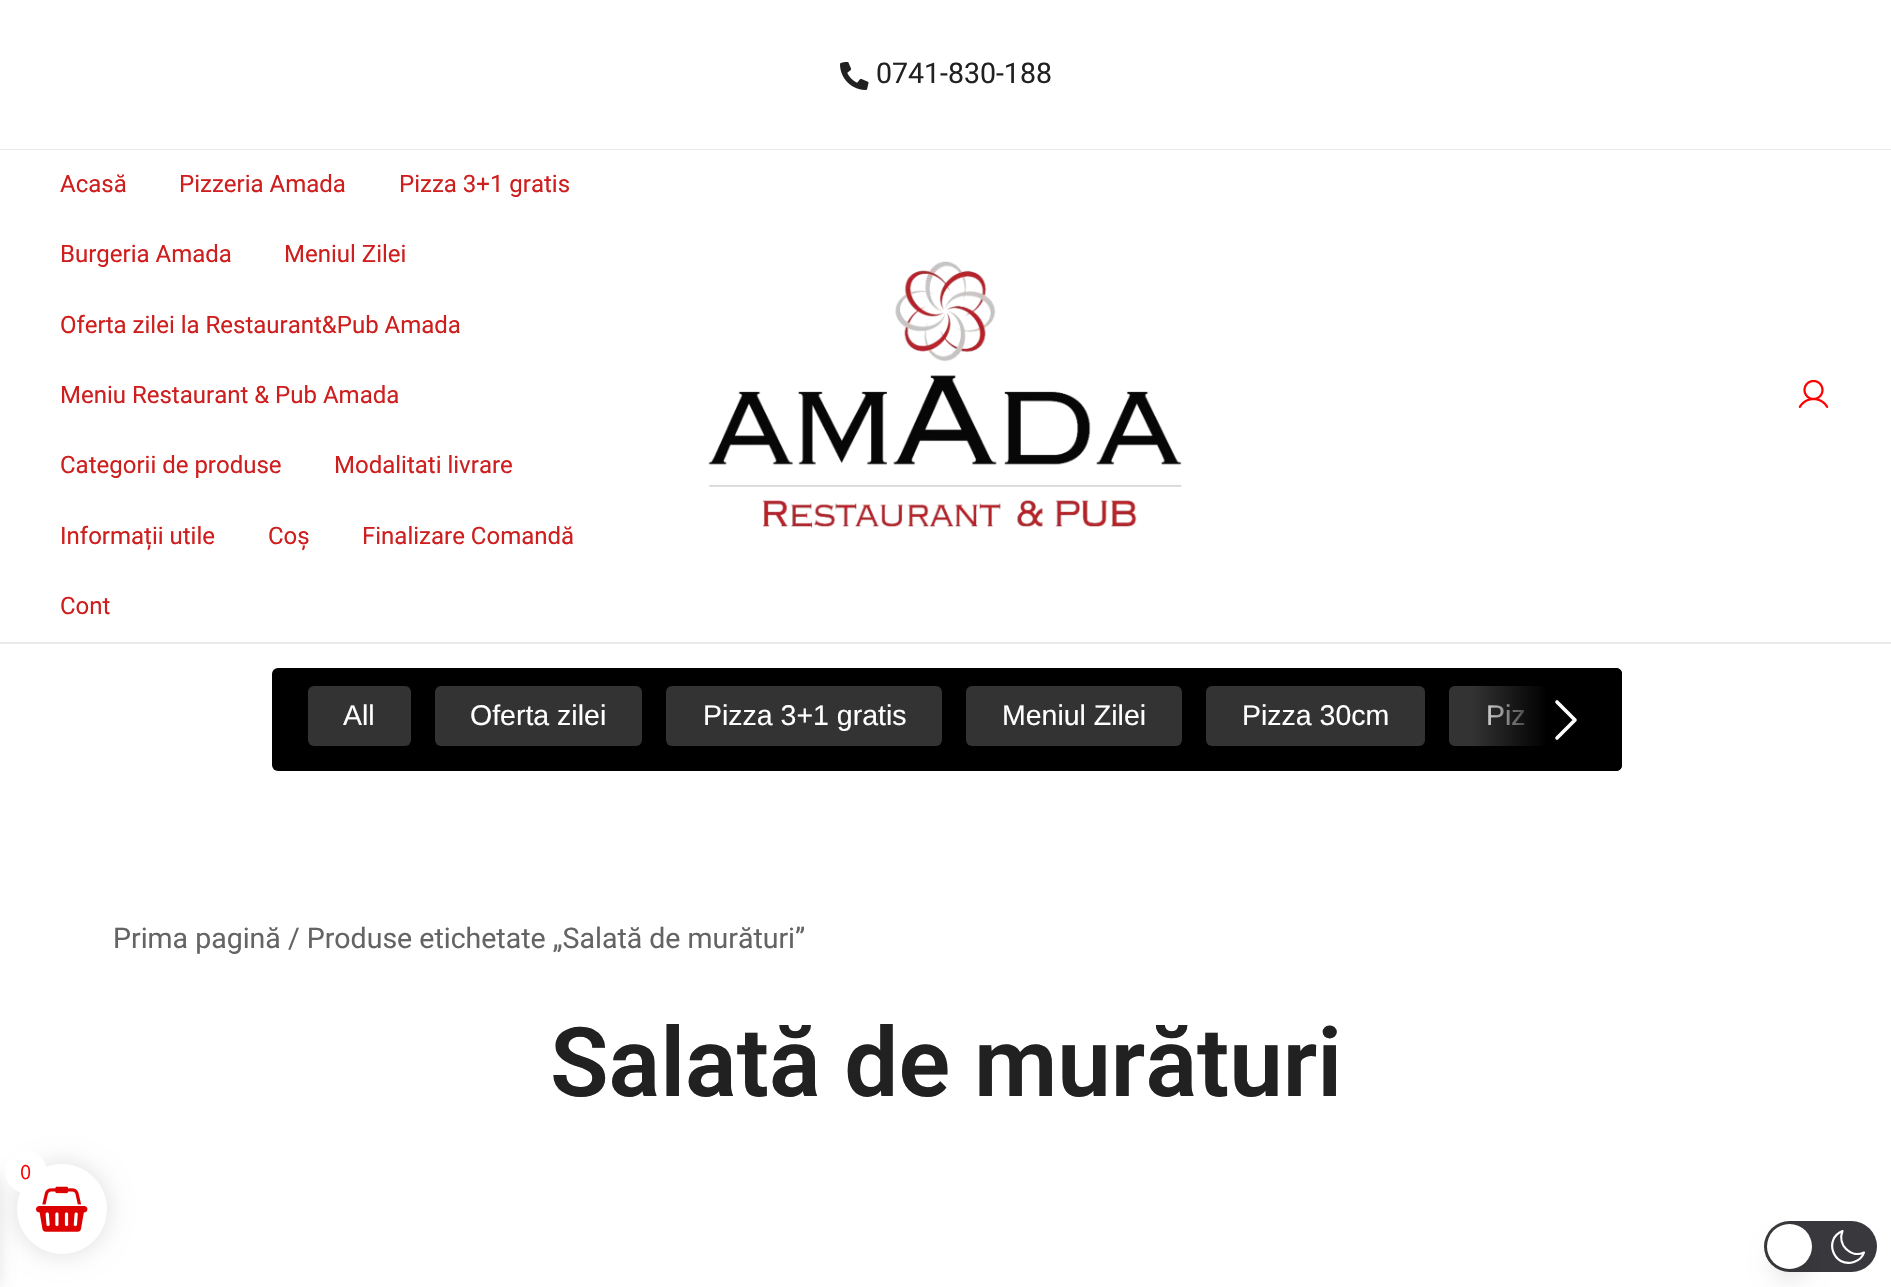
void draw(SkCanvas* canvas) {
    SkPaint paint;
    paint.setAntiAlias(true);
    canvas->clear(0xFFFFFFFF);
    paint.setColor(0xFFEAEAEA);
    canvas->drawRect(SkRect::MakeXYWH(0, 149, 1891, 1), paint);
    canvas->drawImageRect(SkImages::DeferredFromEncodedData(SkData::MakeFromFileName("img1.png")), SkRect::MakeXYWH(840, 62, 29, 28), SkSamplingOptions());
    SkFont font1(fontMgr->matchFamilyStyle("Roboto", SkFontStyle::Normal()), 28.5f);
    font1.setSubpixel(true);
    paint.setColor(0xFF212121);
    canvas->drawString("0741-830-188", 876, 83, font1, paint);
    paint.setColor(0xFFEAEAEA);
    canvas->drawRect(SkRect::MakeXYWH(0, 642, 1891, 2), paint);
    SkFont font2(fontMgr->matchFamilyStyle("Roboto", SkFontStyle::Normal()), 24);
    font2.setSubpixel(true);
    paint.setColor(0xFFCE1E1E);
    canvas->drawString("Acasă", 60, 192, font2, paint);
    canvas->drawString("Pizzeria Amada", 179, 192, font2, paint);
    canvas->drawString("Pizza 3+1 gratis", 399, 192, font2, paint);
    canvas->drawString("Burgeria Amada", 60, 262, font2, paint);
    canvas->drawString("Meniul Zilei", 284, 262, font2, paint);
    canvas->drawString("Oferta zilei la Restaurant&Pub Amada", 60, 333, font2, paint);
    canvas->drawString("Meniu Restaurant & Pub Amada", 60, 403, font2, paint);
    canvas->drawString("Categorii de produse", 60, 473, font2, paint);
    canvas->drawString("Modalitati livrare", 334, 473, font2, paint);
    canvas->drawString("Informații utile", 60, 544, font2, paint);
    canvas->drawString("Coș", 268, 544, font2, paint);
    canvas->drawString("Finalizare Comandă", 362, 544, font2, paint);
    canvas->drawString("Cont", 60, 614, font2, paint);
    canvas->drawImageRect(SkImages::DeferredFromEncodedData(SkData::MakeFromFileName("img2.png")), SkRect::MakeXYWH(708, 261, 474, 267), SkSamplingOptions());
    canvas->drawImageRect(SkImages::DeferredFromEncodedData(SkData::MakeFromFileName("img3.png")), SkRect::MakeXYWH(1798, 379, 31, 29), SkSamplingOptions());
    paint.setColor(0xFF000000);
    canvas->drawRoundRect(SkRect::MakeXYWH(272, 668, 1350, 103), 6, 6, paint);
    paint.setColor(0xFF333333);
    canvas->drawRoundRect(SkRect::MakeXYWH(308, 686, 103, 60), 6, 6, paint);
    SkFont font3(fontMgr->matchFamilyStyle("Liberation Sans", SkFontStyle::Normal()), 28.5f);
    font3.setSubpixel(true);
    paint.setColor(0xFFFFFFFF);
    canvas->drawString("All", 343, 725, font3, paint);
    paint.setColor(0xFF333333);
    canvas->drawRoundRect(SkRect::MakeXYWH(435, 686, 207, 60), 6, 6, paint);
    paint.setColor(0xFFFFFFFF);
    canvas->drawString("Oferta zilei", 470, 725, font3, paint);
    paint.setColor(0xFF333333);
    canvas->drawRoundRect(SkRect::MakeXYWH(666, 686, 276, 60), 6, 6, paint);
    paint.setColor(0xFFFFFFFF);
    canvas->drawString("Pizza 3+1 gratis", 703, 725, font3, paint);
    paint.setColor(0xFF333333);
    canvas->drawRoundRect(SkRect::MakeXYWH(966, 686, 216, 60), 6, 6, paint);
    paint.setColor(0xFFFFFFFF);
    canvas->drawString("Meniul Zilei", 1002, 725, font3, paint);
    paint.setColor(0xFF333333);
    canvas->drawRoundRect(SkRect::MakeXYWH(1206, 686, 219, 60), 6, 6, paint);
    paint.setColor(0xFFFFFFFF);
    canvas->drawString("Pizza 30cm", 1242, 725, font3, paint);
    paint.setColor(0xFF333333);
    canvas->drawPath(SkPathBuilder().moveTo(1455, 686).lineTo(1622, 686).lineTo(1622, 746).lineTo(1455, 746).cubicTo(1451.5f, 746, 1449, 743.5f, 1449, 740).lineTo(1449, 692).cubicTo(1449, 688.5f, 1451.5f, 686, 1455, 686).close().detach(), paint);
    paint.setColor(0xFFFFFFFF);
    canvas->drawString("Piz", 1486, 725, font3, paint);
    {
        const SkColor colors[] = {0xFF000000, 0x00000000};
        const float stops[] = {0.5f, 1};
        const SkPoint ends[] = {{1622, 719}, {1472, 719}};
        paint.setShader(SkGradientShader::MakeLinear(ends, colors, stops, 2, SkTileMode::kClamp));
        paint.setAlpha(255);
    }
    canvas->drawPath(SkPathBuilder().moveTo(1472, 668).lineTo(1616, 668).cubicTo(1619.5f, 668, 1622, 670.5f, 1622, 674).lineTo(1622, 765).cubicTo(1622, 768.5f, 1619.5f, 771, 1616, 771).lineTo(1472, 771).close().detach(), paint);
    paint.setStyle(SkPaint::kStroke_Style);
    paint.setStrokeWidth(3.6f);
    paint.setStrokeCap(SkPaint::kRound_Cap);
    paint.setStrokeJoin(SkPaint::kRound_Join);
    paint.setShader(nullptr);
    paint.setColor(0xFFFFFFFF);
    canvas->drawPath(SkPathBuilder().moveTo(1557, 702).lineTo(1575, 720).lineTo(1557, 738).detach(), paint);
    paint.setStyle(SkPaint::kFill_Style);
    paint.setColor(0xFF646464);
    canvas->drawString("Prima pagină / Produse etichetate „Salată de murături”", 113, 948, font1, paint);
    SkFont font4(fontMgr->matchFamilyStyle("Roboto", SkFontStyle(600, SkFontStyle::kNormal_Width, SkFontStyle::kUpright_Slant)), 96);
    font4.setSubpixel(true);
    paint.setColor(0xFF212121);
    canvas->drawString("Salată de murături", 550, 1096, font4, paint);
    paint.setColor(0x1A000000);
    paint.setMaskFilter(SkMaskFilter::MakeBlur(kNormal_SkBlurStyle, 7.5f));
    canvas->drawRect(SkRect::MakeXYWH(-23, 1175, 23, 111), paint);
    paint.setMaskFilter(nullptr);
    paint.setMaskFilter(SkMaskFilter::MakeBlur(kNormal_SkBlurStyle, 11));
    canvas->drawRoundRect(SkRect::MakeXYWH(14, 1161, 96, 96), 48, 48, paint);
    paint.setMaskFilter(nullptr);
    paint.setColor(0xFFFFFFFF);
    canvas->drawCircle(62, 1209, 45, paint);
    canvas->drawImageRect(SkImages::DeferredFromEncodedData(SkData::MakeFromFileName("img4.png")), SkRect::MakeXYWH(36, 1186, 52, 46), SkSamplingOptions());
    canvas->drawCircle(26, 1172, 21, paint);
    SkFont font5(fontMgr->matchFamilyStyle("Ubuntu", SkFontStyle::Normal()), 20);
    font5.setSubpixel(true);
    paint.setColor(0xFFFF0000);
    canvas->drawString("0", 20, 1179, font5, paint);
    paint.setColor(0xFF39393D);
    canvas->drawRoundRect(SkRect::MakeXYWH(1764, 1221, 113, 51), 25.5f, 25.5f, paint);
    paint.setStyle(SkPaint::kStroke_Style);
    paint.setStrokeWidth(2.2f);
    paint.setColor(0xFFFFFFFF);
    canvas->drawPath(SkPathBuilder().moveTo(1864, 1252.5f).cubicTo(1850.5f, 1258.5f, 1837, 1244.5f, 1842.5f, 1231).cubicTo(1823, 1239, 1833.5f, 1268.5f, 1854, 1262).cubicTo(1858.5f, 1260.5f, 1862.5f, 1257, 1864, 1252.5f).close().detach(), paint);
    paint.setStyle(SkPaint::kFill_Style);
    paint.setColor(0x1A000000);
    paint.setMaskFilter(SkMaskFilter::MakeBlur(kNormal_SkBlurStyle, 11));
    canvas->drawRoundRect(SkRect::MakeXYWH(1772, 1244, 36, 36), 18, 18, paint);
    paint.setMaskFilter(nullptr);
    paint.setColor(0xFFFFFFFF);
    canvas->drawCircle(1789.5f, 1246.5f, 22.5f, paint);
}
